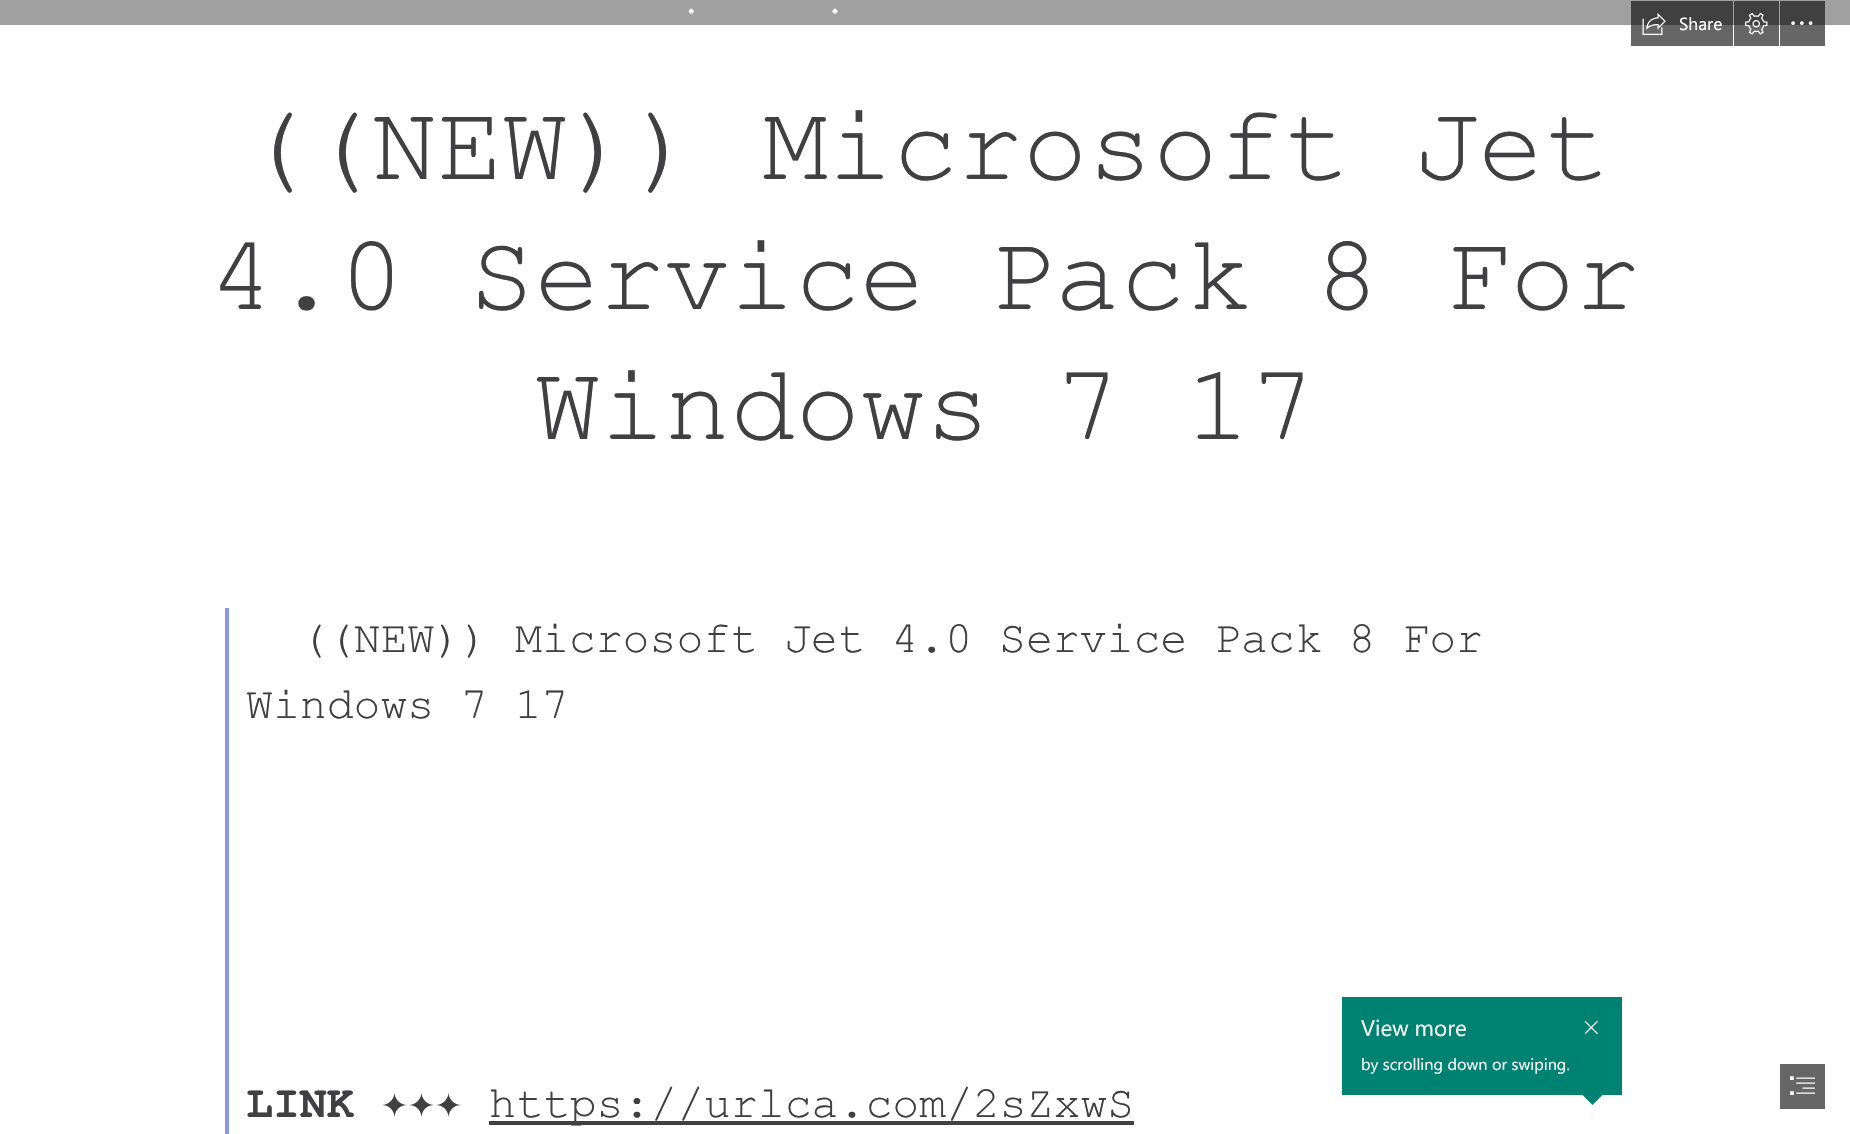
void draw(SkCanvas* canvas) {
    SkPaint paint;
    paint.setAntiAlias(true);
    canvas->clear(0xFFFFFFFF);
    paint.setColor(0xFFA0A0A0);
    canvas->drawRect(SkRect::MakeXYWH(0, 0, 1850, 25), paint);
    paint.setColor(0xFF404040);
    canvas->drawRect(SkRect::MakeXYWH(1631, 1, 102, 24), paint);
    paint.setColor(0xFF666666);
    canvas->drawRect(SkRect::MakeXYWH(1631, 25, 102, 21), paint);
    canvas->drawImageRect(SkImages::DeferredFromEncodedData(SkData::MakeFromFileName("img1.png")), SkRect::MakeXYWH(1642, 13, 24, 22), SkSamplingOptions());
    SkFont font1(fontMgr->matchFamilyStyle("Segoe UI", SkFontStyle::Normal()), 17.5f);
    font1.setSubpixel(true);
    paint.setColor(0xFFFFFFFF);
    canvas->drawString("Share", 1679, 30, font1, paint);
    paint.setColor(0xFF404040);
    canvas->drawRect(SkRect::MakeXYWH(1734, 1, 45, 24), paint);
    paint.setColor(0xFF666666);
    canvas->drawRect(SkRect::MakeXYWH(1734, 25, 45, 21), paint);
    canvas->drawImageRect(SkImages::DeferredFromEncodedData(SkData::MakeFromFileName("img2.png")), SkRect::MakeXYWH(1745, 12, 23, 23), SkSamplingOptions());
    paint.setColor(0xFF404040);
    canvas->drawRect(SkRect::MakeXYWH(1780, 1, 45, 24), paint);
    canvas->drawImageRect(SkImages::DeferredFromEncodedData(SkData::MakeFromFileName("img3.png")), SkRect::MakeXYWH(1791, 21, 22, 4), SkSamplingOptions());
    canvas->drawImageRect(SkImages::DeferredFromEncodedData(SkData::MakeFromFileName("img4.png")), SkRect::MakeXYWH(688, 8, 150, 6), SkSamplingOptions());
    paint.setColor(0xFF666666);
    canvas->drawRect(SkRect::MakeXYWH(1780, 25, 45, 21), paint);
    SkFont font2(fontMgr->matchFamilyStyle("Courier New", SkFontStyle::Normal()), 108.4f);
    font2.setSubpixel(true);
    paint.setColor(0xFF403F41);
    canvas->drawString("((NEW)) Microsoft Jet", 242, 179, font2, paint);
    canvas->drawString("4.0 Service Pack 8 For", 209, 309, font2, paint);
    canvas->drawString("Windows 7 17", 535, 439, font2, paint);
    paint.setColor(0xFF8796E7);
    canvas->drawRect(SkRect::MakeXYWH(225, 608, 4, 526), paint);
    SkFont font3(fontMgr->matchFamilyStyle("Courier New", SkFontStyle::Normal()), 44.8f);
    font3.setSubpixel(true);
    paint.setColor(0xFF403F41);
    canvas->drawString("((NEW)) Microsoft Jet 4.0 Service Pack 8 For", 300, 652, font3, paint);
    canvas->drawString("Windows 7 17", 246, 718, font3, paint);
    SkFont font4(fontMgr->matchFamilyStyle("Courier New", SkFontStyle::Bold()), 44.8f);
    font4.setSubpixel(true);
    canvas->drawString("LINK", 246, 1117, font4, paint);
    SkFont font5(fontMgr->matchFamilyStyle("DejaVu Sans Mono", SkFontStyle::Normal()), 44.8f);
    font5.setSubpixel(true);
    canvas->drawString("✦✦✦", 381, 1117, font5, paint);
    canvas->drawRect(SkRect::MakeXYWH(489, 1121, 645, 4), paint);
    canvas->drawString("https://urlca.com/2sZxwS", 489, 1117, font3, paint);
    paint.setColor(0xFF008272);
    canvas->drawRect(SkRect::MakeXYWH(1342, 997, 280, 98), paint);
    SkFont font6(fontMgr->matchFamilyStyle("Segoe UI", SkFontStyle::Normal()), 22.5f);
    font6.setSubpixel(true);
    paint.setColor(0xFFFFFFFF);
    canvas->drawString("View more", 1361, 1036, font6, paint);
    SkFont font7(fontMgr->matchFamilyStyle("Segoe UI", SkFontStyle::Normal()), 16.25f);
    font7.setSubpixel(true);
    canvas->drawString("by scrolling down or swiping.", 1361, 1070, font7, paint);
    canvas->drawImageRect(SkImages::DeferredFromEncodedData(SkData::MakeFromFileName("img5.png")), SkRect::MakeXYWH(1584, 1020, 14, 15), SkSamplingOptions());
    paint.setColor(0xFF008272);
    canvas->drawPath(SkPathBuilder().moveTo(1582.5f, 1095).lineTo(1602.5f, 1095).lineTo(1592.5f, 1105).close().detach(), paint);
    paint.setColor(0xFF666666);
    canvas->drawRect(SkRect::MakeXYWH(1780, 1064, 45, 45), paint);
    canvas->drawImageRect(SkImages::DeferredFromEncodedData(SkData::MakeFromFileName("img6.png")), SkRect::MakeXYWH(1790, 1076, 25, 19), SkSamplingOptions());
}
